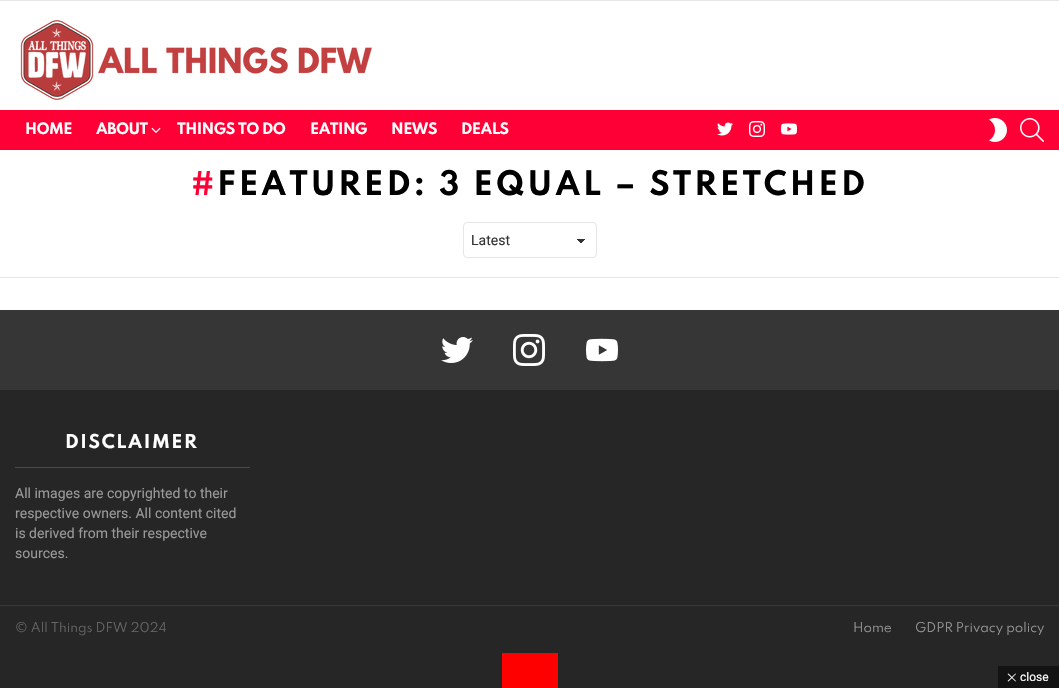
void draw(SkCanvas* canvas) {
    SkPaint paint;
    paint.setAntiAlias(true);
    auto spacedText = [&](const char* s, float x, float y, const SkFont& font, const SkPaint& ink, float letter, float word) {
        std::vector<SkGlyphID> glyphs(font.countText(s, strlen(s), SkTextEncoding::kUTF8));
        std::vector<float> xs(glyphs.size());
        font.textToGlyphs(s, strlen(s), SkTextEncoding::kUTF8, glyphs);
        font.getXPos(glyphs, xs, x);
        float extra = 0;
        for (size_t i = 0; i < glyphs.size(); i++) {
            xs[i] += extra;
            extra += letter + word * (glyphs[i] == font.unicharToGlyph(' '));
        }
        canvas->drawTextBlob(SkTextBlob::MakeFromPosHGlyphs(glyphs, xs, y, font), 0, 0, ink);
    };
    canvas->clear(0xFFFFFFFF);
    paint.setColor(0xFFE6E6E6);
    canvas->drawRect(SkRect::MakeXYWH(0, 0, 1059, 1), paint);
    canvas->drawImageRect(SkImages::DeferredFromEncodedData(SkData::MakeFromFileName("img1.png")), SkRect::MakeXYWH(20, 20, 352, 80), SkSamplingOptions());
    paint.setColor(0xFFFF0036);
    canvas->drawRect(SkRect::MakeXYWH(0, 110, 1059, 40), paint);
    SkFont font1(fontMgr->matchFamilyStyle("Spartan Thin", SkFontStyle::Bold()), 14);
    font1.setSubpixel(true);
    paint.setColor(0xFFFFFFFF);
    spacedText("HOME", 25, 134, font1, paint, -0.5f, 0);
    spacedText("ABOUT", 96, 134, font1, paint, -0.5f, 0);
    canvas->drawImageRect(SkImages::DeferredFromEncodedData(SkData::MakeFromFileName("img2.png")), SkRect::MakeXYWH(151, 127, 10, 6), SkSamplingOptions());
    spacedText("THINGS TO DO", 177, 134, font1, paint, -0.5f, 0);
    spacedText("EATING", 310, 134, font1, paint, -0.5f, 0);
    spacedText("NEWS", 391, 134, font1, paint, -0.5f, 0);
    spacedText("DEALS", 461, 134, font1, paint, -0.5f, 0);
    canvas->drawImageRect(SkImages::DeferredFromEncodedData(SkData::MakeFromFileName("img3.png")), SkRect::MakeXYWH(717, 122, 16, 14), SkSamplingOptions());
    canvas->drawImageRect(SkImages::DeferredFromEncodedData(SkData::MakeFromFileName("img4.png")), SkRect::MakeXYWH(749, 121, 16, 16), SkSamplingOptions());
    canvas->drawImageRect(SkImages::DeferredFromEncodedData(SkData::MakeFromFileName("img5.png")), SkRect::MakeXYWH(781, 123, 16, 12), SkSamplingOptions());
    canvas->drawImageRect(SkImages::DeferredFromEncodedData(SkData::MakeFromFileName("img6.png")), SkRect::MakeXYWH(989, 118, 18, 24), SkSamplingOptions());
    canvas->drawImageRect(SkImages::DeferredFromEncodedData(SkData::MakeFromFileName("img7.png")), SkRect::MakeXYWH(1020, 118, 24, 24), SkSamplingOptions());
    SkFont font2(fontMgr->matchFamilyStyle("Spartan Thin", SkFontStyle::Bold()), 30);
    font2.setSubpixel(true);
    paint.setColor(0xFFFF0036);
    spacedText("#", 191, 195, font2, paint, 2.9f, 0);
    paint.setColor(0xFF000000);
    spacedText("FEATURED: 3 EQUAL – STRETCHED", 217, 195, font2, paint, 2.9f, 0);
    {
        const SkColor colors[] = {0xFF333333, 0xFFFFFFFF};
        const float stops[] = {0.5f, 0.5f};
        const SkPoint ends[] = {{581, 239}, {586, 243}};
        paint.setShader(SkGradientShader::MakeLinear(ends, colors, stops, 2, SkTileMode::kClamp));
        paint.setAlpha(255);
    }
    canvas->drawRect(SkRect::MakeXYWH(581, 239, 5, 4), paint);
    {
        const SkColor colors[] = {0xFFFFFFFF, 0xFF333333};
        const float stops[] = {0.5f, 0.5f};
        const SkPoint ends[] = {{576, 243}, {581, 239}};
        paint.setShader(SkGradientShader::MakeLinear(ends, colors, stops, 2, SkTileMode::kClamp));
        paint.setAlpha(255);
    }
    canvas->drawRect(SkRect::MakeXYWH(576, 239, 5, 4), paint);
    paint.setStyle(SkPaint::kStroke_Style);
    paint.setStrokeWidth(1);
    paint.setShader(nullptr);
    paint.setColor(0xFFE6E6E6);
    canvas->drawRoundRect(SkRect::MakeXYWH(463.5f, 222.5f, 133, 35), 3.5f, 3.5f, paint);
    SkFont font3(fontMgr->matchFamilyStyle("Roboto", SkFontStyle::Normal()), 14);
    font3.setSubpixel(true);
    paint.setStyle(SkPaint::kFill_Style);
    paint.setColor(0xFF333333);
    canvas->drawString("Latest", 471, 245, font3, paint);
    paint.setColor(0xFFE6E6E6);
    canvas->drawRect(SkRect::MakeXYWH(0, 277, 1059, 1), paint);
    paint.setColor(0xFF363636);
    canvas->drawRect(SkRect::MakeXYWH(0, 310, 1059, 80), paint);
    canvas->drawImageRect(SkImages::DeferredFromEncodedData(SkData::MakeFromFileName("img8.png")), SkRect::MakeXYWH(441, 337, 32, 26), SkSamplingOptions());
    canvas->drawImageRect(SkImages::DeferredFromEncodedData(SkData::MakeFromFileName("img9.png")), SkRect::MakeXYWH(513, 334, 32, 32), SkSamplingOptions());
    canvas->drawImageRect(SkImages::DeferredFromEncodedData(SkData::MakeFromFileName("img10.png")), SkRect::MakeXYWH(586, 338, 32, 24), SkSamplingOptions());
    paint.setColor(0xFF262626);
    canvas->drawRect(SkRect::MakeXYWH(0, 390, 1059, 215), paint);
    SkFont font4(fontMgr->matchFamilyStyle("Spartan Thin", SkFontStyle::Bold()), 17);
    font4.setSubpixel(true);
    paint.setColor(0xFFFFFFFF);
    spacedText("DISCLAIMER", 65, 448, font4, paint, 1.6f, 0);
    paint.setColor(0xFF4A4A4A);
    canvas->drawRect(SkRect::MakeXYWH(15, 467, 235, 1), paint);
    paint.setColor(0xFF999999);
    canvas->drawString("All images are copyrighted to their", 15, 498, font3, paint);
    canvas->drawString("respective owners. All content cited", 15, 518, font3, paint);
    canvas->drawString("is derived from their respective", 15, 538, font3, paint);
    canvas->drawString("sources.", 15, 558, font3, paint);
    paint.setColor(0xFF393939);
    canvas->drawRect(SkRect::MakeXYWH(0, 605, 1059, 1), paint);
    paint.setColor(0xFF262626);
    canvas->drawRect(SkRect::MakeXYWH(0, 606, 1059, 82), paint);
    SkFont font5(fontMgr->matchFamilyStyle("Spartan Thin", SkFontStyle::Normal()), 12);
    font5.setSubpixel(true);
    paint.setColor(0xFF666666);
    canvas->drawString("© All Things DFW 2024", 15, 632, font5, paint);
    paint.setColor(0xFF999999);
    canvas->drawString("Home", 853, 632, font5, paint);
    canvas->drawString("GDPR Privacy policy", 915, 632, font5, paint);
    paint.setColor(0xFFFF0000);
    canvas->drawRect(SkRect::MakeXYWH(502, 653, 56, 35), paint);
    paint.setColor(0xFF131313);
    canvas->drawRect(SkRect::MakeXYWH(998, 666, 61, 22), paint);
    paint.setColor(0xFFFFFFFF);
    canvas->drawPath(SkPathBuilder().moveTo(1008.5f, 673.5f).lineTo(1016, 681).lineTo(1015.5f, 681.5f).lineTo(1007.5f, 674).close().detach(), paint);
    SkFont font6(fontMgr->matchFamilyStyle("Roboto", SkFontStyle::Normal()), 12);
    font6.setSubpixel(true);
    canvas->drawString("close", 1020, 681, font6, paint);
    canvas->drawPath(SkPathBuilder().moveTo(1015.5f, 673.5f).lineTo(1016, 674).lineTo(1008.5f, 681.5f).lineTo(1007.5f, 681).close().detach(), paint);
}
